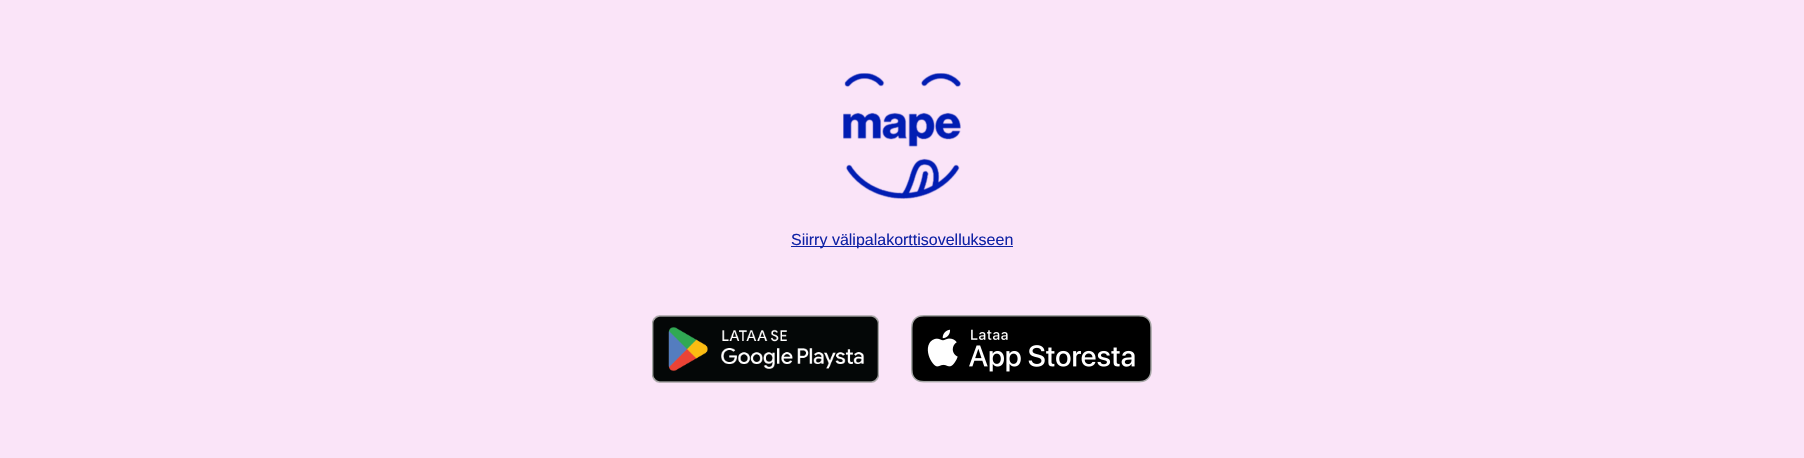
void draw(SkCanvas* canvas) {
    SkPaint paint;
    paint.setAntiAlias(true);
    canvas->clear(0xFFFAE4F8);
    canvas->drawImageRect(SkImages::DeferredFromEncodedData(SkData::MakeFromFileName("img1.png")), SkRect::MakeXYWH(843, 73, 118, 126), SkSamplingOptions());
    paint.setColor(0xFF0F22A5);
    canvas->drawRect(SkRect::MakeXYWH(791, 246, 222, 1), paint);
    SkFont font1(fontMgr->matchFamilyStyle("Liberation Sans", SkFontStyle::Normal()), 16);
    font1.setSubpixel(true);
    canvas->drawString("Siirry välipalakorttisovellukseen", 791, 245, font1, paint);
    canvas->drawImageRect(SkImages::DeferredFromEncodedData(SkData::MakeFromFileName("img2.png")), SkRect::MakeXYWH(652, 315, 227, 68), SkSamplingOptions());
    canvas->drawImageRect(SkImages::DeferredFromEncodedData(SkData::MakeFromFileName("img3.png")), SkRect::MakeXYWH(911, 315, 241, 68), SkSamplingOptions());
}
